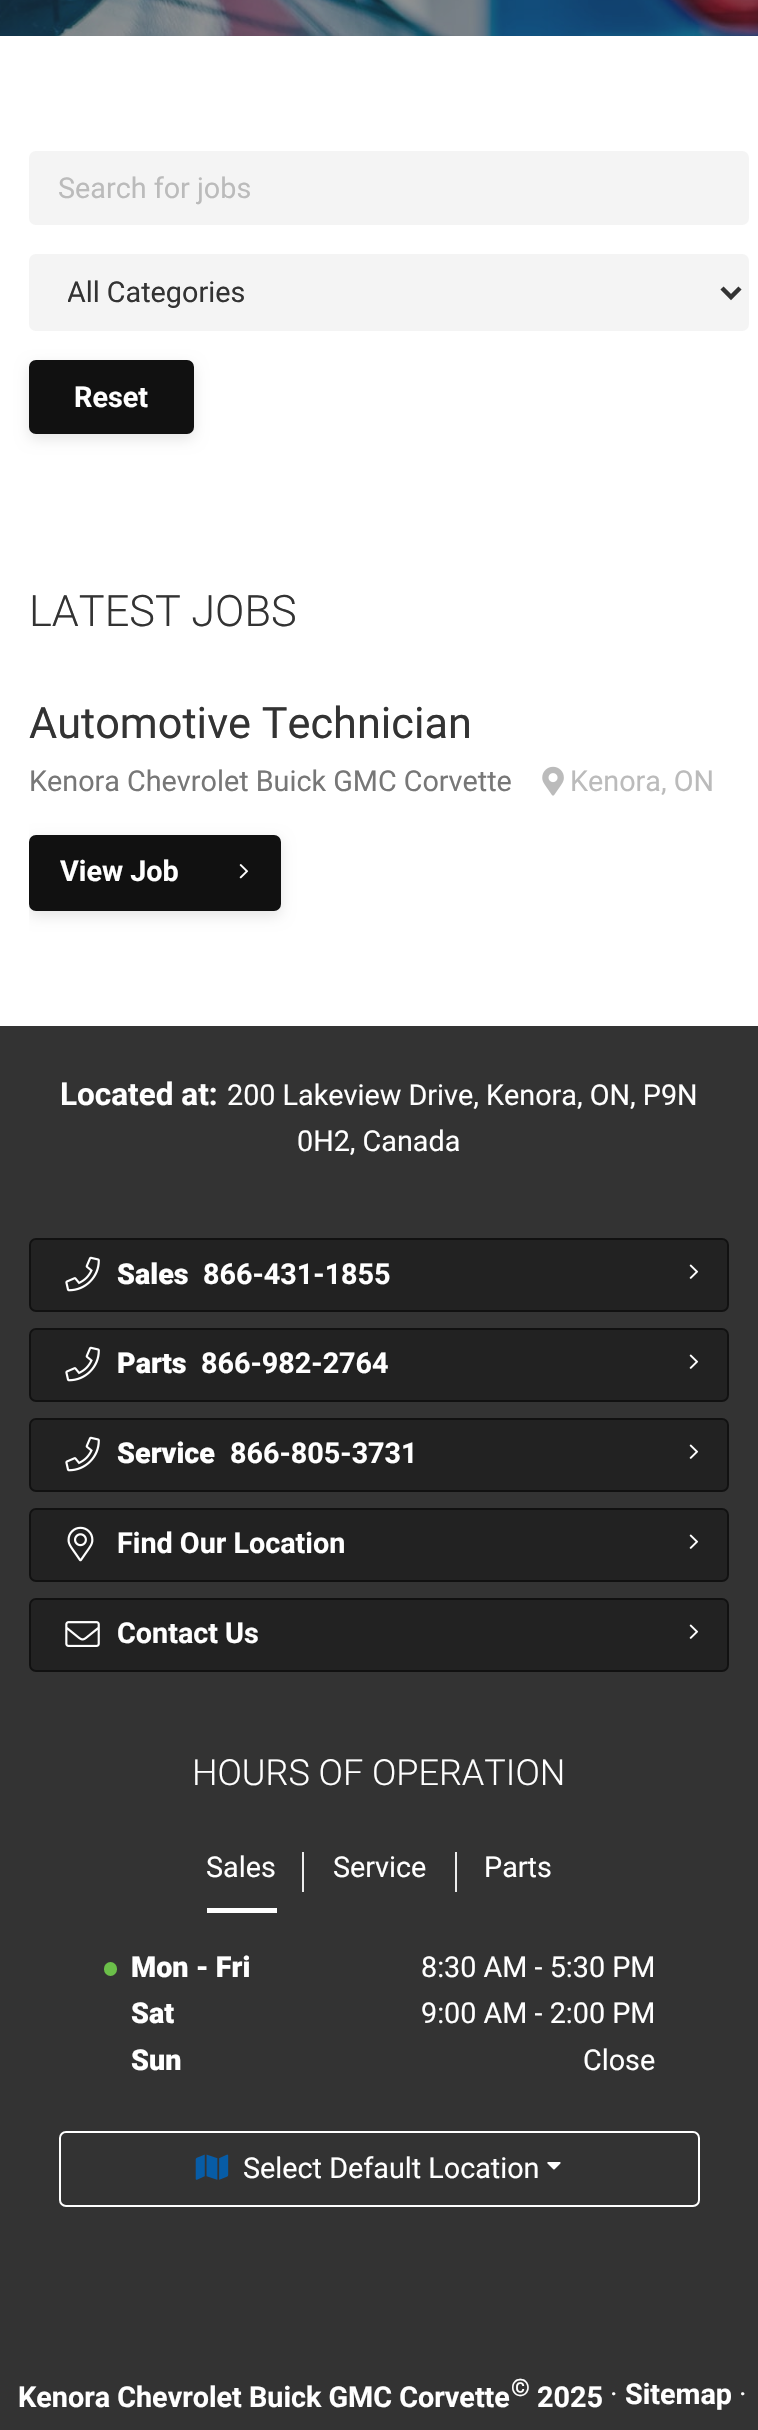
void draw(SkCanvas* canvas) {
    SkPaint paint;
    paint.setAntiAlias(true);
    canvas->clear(0xFFFFFFFF);
    canvas->drawImageRect(SkImages::DeferredFromEncodedData(SkData::MakeFromFileName("img1.png")), SkRect::MakeXYWH(0, 0, 758, 36), SkSamplingOptions());
    paint.setColor(0xFFF4F4F4);
    canvas->drawRoundRect(SkRect::MakeXYWH(29, 151, 720, 74), 7, 7, paint);
    SkFont font1(fontMgr->matchFamilyStyle("Roboto", SkFontStyle::Normal()), 28.75f);
    font1.setSubpixel(true);
    paint.setColor(0xFFBBBBBB);
    canvas->drawString("Search for jobs", 58, 198, font1, paint);
    paint.setColor(0xFFF4F4F4);
    canvas->drawRoundRect(SkRect::MakeXYWH(29, 254, 720, 77), 7, 7, paint);
    paint.setStyle(SkPaint::kStroke_Style);
    paint.setStrokeWidth(4.5f);
    paint.setColor(0xFF333333);
    canvas->drawPath(SkPathBuilder().moveTo(722, 288).lineTo(731, 297).lineTo(740, 288).detach(), paint);
    canvas->save();
    canvas->clipRect(SkRect::MakeXYWH(68, 272, 616, 39));
    paint.setStyle(SkPaint::kFill_Style);
    canvas->drawString("All Categories", 67, 302, font1, paint);
    canvas->restore();
    paint.setColor(0x1A000000);
    paint.setMaskFilter(SkMaskFilter::MakeBlur(kNormal_SkBlurStyle, 7));
    canvas->drawRoundRect(SkRect::MakeXYWH(29, 365, 165, 74), 7, 7, paint);
    paint.setMaskFilter(nullptr);
    paint.setColor(0xFF111111);
    canvas->drawRoundRect(SkRect::MakeXYWH(30, 361, 163, 72), 6, 6, paint);
    paint.setStyle(SkPaint::kStroke_Style);
    paint.setStrokeWidth(2);
    canvas->drawRoundRect(SkRect::MakeXYWH(30, 361, 163, 72), 6, 6, paint);
    SkFont font2(fontMgr->matchFamilyStyle("Roboto", SkFontStyle::Bold()), 28.75f);
    font2.setSubpixel(true);
    paint.setStyle(SkPaint::kFill_Style);
    paint.setColor(0xFFFFFFFF);
    canvas->drawString("Reset", 74, 407, font2, paint);
    SkFont font3(fontMgr->matchFamilyStyle("Roboto", SkFontStyle(300, SkFontStyle::kNormal_Width, SkFontStyle::kUpright_Slant)), 43.25f);
    font3.setSubpixel(true);
    paint.setColor(0xFF333333);
    canvas->drawString("LATEST JOBS", 29, 626, font3, paint);
    SkFont font4(fontMgr->matchFamilyStyle("Roboto", SkFontStyle::Normal()), 43.25f);
    font4.setSubpixel(true);
    canvas->drawString("Automotive Technician", 29, 738, font4, paint);
    paint.setColor(0xFF777777);
    canvas->drawString("Kenora Chevrolet Buick GMC Corvette", 29, 791, font1, paint);
    canvas->drawImageRect(SkImages::DeferredFromEncodedData(SkData::MakeFromFileName("img2.png")), SkRect::MakeXYWH(542, 766, 22, 30), SkSamplingOptions());
    paint.setColor(0xFFBBBBBB);
    canvas->drawString("Kenora, ON", 570, 791, font1, paint);
    canvas->save();
    canvas->clipPath(SkPathBuilder().moveTo(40, 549).lineTo(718, 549).cubicTo(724, 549, 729, 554, 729, 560).lineTo(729, 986).cubicTo(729, 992, 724, 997, 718, 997).lineTo(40, 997).cubicTo(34, 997, 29, 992, 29, 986).lineTo(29, 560).cubicTo(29, 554, 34, 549, 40, 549).close().detach(), true);
    paint.setColor(0x1A000000);
    paint.setMaskFilter(SkMaskFilter::MakeBlur(kNormal_SkBlurStyle, 7));
    canvas->drawRoundRect(SkRect::MakeXYWH(29, 839, 252, 77), 7, 7, paint);
    paint.setMaskFilter(nullptr);
    canvas->restore();
    paint.setColor(0xFF111111);
    canvas->drawRoundRect(SkRect::MakeXYWH(30, 836, 250, 74), 6, 6, paint);
    paint.setStyle(SkPaint::kStroke_Style);
    canvas->drawRoundRect(SkRect::MakeXYWH(30, 836, 250, 74), 6, 6, paint);
    paint.setStyle(SkPaint::kFill_Style);
    paint.setColor(0xFFFFFFFF);
    canvas->drawString("View Job", 60, 881, font2, paint);
    canvas->drawImageRect(SkImages::DeferredFromEncodedData(SkData::MakeFromFileName("img3.png")), SkRect::MakeXYWH(239, 864, 10, 15), SkSamplingOptions());
    paint.setColor(0xFF333333);
    canvas->drawRect(SkRect::MakeXYWH(0, 1026, 758, 1404), paint);
    SkFont font5(fontMgr->matchFamilyStyle("Roboto", SkFontStyle::Bold()), 31.5f);
    font5.setSubpixel(true);
    paint.setColor(0xFFFFFFFF);
    canvas->drawString("Located at:", 60, 1105, font5, paint);
    canvas->drawString("200 Lakeview Drive, Kenora, ON, P9N", 227, 1105, font1, paint);
    canvas->drawString("0H2, Canada", 297, 1151, font1, paint);
    paint.setColor(0xFF222222);
    canvas->drawRoundRect(SkRect::MakeXYWH(30, 1239, 698, 72), 6, 6, paint);
    paint.setStyle(SkPaint::kStroke_Style);
    paint.setColor(0xFF111111);
    canvas->drawRoundRect(SkRect::MakeXYWH(30, 1239, 698, 72), 6, 6, paint);
    canvas->drawImageRect(SkImages::DeferredFromEncodedData(SkData::MakeFromFileName("img4.png")), SkRect::MakeXYWH(65, 1256, 35, 36), SkSamplingOptions());
    SkFont font6(fontMgr->matchFamilyStyle("Roboto", SkFontStyle(900, SkFontStyle::kNormal_Width, SkFontStyle::kUpright_Slant)), 28.75f);
    font6.setSubpixel(true);
    paint.setStyle(SkPaint::kFill_Style);
    paint.setColor(0xFFFFFFFF);
    canvas->drawString("Sales", 117, 1284, font6, paint);
    canvas->drawString("866-431-1855", 203, 1284, font2, paint);
    canvas->drawImageRect(SkImages::DeferredFromEncodedData(SkData::MakeFromFileName("img5.png")), SkRect::MakeXYWH(689, 1264, 10, 15), SkSamplingOptions());
    paint.setColor(0xFF222222);
    canvas->drawRoundRect(SkRect::MakeXYWH(30, 1329, 698, 72), 6, 6, paint);
    paint.setStyle(SkPaint::kStroke_Style);
    paint.setColor(0xFF111111);
    canvas->drawRoundRect(SkRect::MakeXYWH(30, 1329, 698, 72), 6, 6, paint);
    canvas->drawImageRect(SkImages::DeferredFromEncodedData(SkData::MakeFromFileName("img4.png")), SkRect::MakeXYWH(65, 1346, 35, 36), SkSamplingOptions());
    paint.setStyle(SkPaint::kFill_Style);
    paint.setColor(0xFFFFFFFF);
    canvas->drawString("Parts", 117, 1373, font6, paint);
    canvas->drawString("866-982-2764", 201, 1373, font2, paint);
    canvas->drawImageRect(SkImages::DeferredFromEncodedData(SkData::MakeFromFileName("img5.png")), SkRect::MakeXYWH(689, 1354, 10, 15), SkSamplingOptions());
    paint.setColor(0xFF222222);
    canvas->drawRoundRect(SkRect::MakeXYWH(30, 1419, 698, 72), 6, 6, paint);
    paint.setStyle(SkPaint::kStroke_Style);
    paint.setColor(0xFF111111);
    canvas->drawRoundRect(SkRect::MakeXYWH(30, 1419, 698, 72), 6, 6, paint);
    canvas->drawImageRect(SkImages::DeferredFromEncodedData(SkData::MakeFromFileName("img4.png")), SkRect::MakeXYWH(65, 1436, 35, 36), SkSamplingOptions());
    paint.setStyle(SkPaint::kFill_Style);
    paint.setColor(0xFFFFFFFF);
    canvas->drawString("Service", 117, 1463, font6, paint);
    canvas->drawString("866-805-3731", 230, 1463, font2, paint);
    canvas->drawImageRect(SkImages::DeferredFromEncodedData(SkData::MakeFromFileName("img5.png")), SkRect::MakeXYWH(689, 1444, 10, 15), SkSamplingOptions());
    paint.setColor(0xFF222222);
    canvas->drawRoundRect(SkRect::MakeXYWH(30, 1509, 698, 72), 6, 6, paint);
    paint.setStyle(SkPaint::kStroke_Style);
    paint.setColor(0xFF111111);
    canvas->drawRoundRect(SkRect::MakeXYWH(30, 1509, 698, 72), 6, 6, paint);
    canvas->drawImageRect(SkImages::DeferredFromEncodedData(SkData::MakeFromFileName("img6.png")), SkRect::MakeXYWH(67, 1526, 27, 36), SkSamplingOptions());
    paint.setStyle(SkPaint::kFill_Style);
    paint.setColor(0xFFFFFFFF);
    canvas->drawString("Find Our Location", 117, 1553, font2, paint);
    canvas->drawImageRect(SkImages::DeferredFromEncodedData(SkData::MakeFromFileName("img5.png")), SkRect::MakeXYWH(689, 1534, 10, 15), SkSamplingOptions());
    paint.setColor(0xFF222222);
    canvas->drawRoundRect(SkRect::MakeXYWH(30, 1599, 698, 72), 6, 6, paint);
    paint.setStyle(SkPaint::kStroke_Style);
    paint.setColor(0xFF111111);
    canvas->drawRoundRect(SkRect::MakeXYWH(30, 1599, 698, 72), 6, 6, paint);
    canvas->drawImageRect(SkImages::DeferredFromEncodedData(SkData::MakeFromFileName("img7.png")), SkRect::MakeXYWH(65, 1621, 35, 26), SkSamplingOptions());
    paint.setStyle(SkPaint::kFill_Style);
    paint.setColor(0xFFFFFFFF);
    canvas->drawString("Contact Us", 117, 1643, font2, paint);
    canvas->drawImageRect(SkImages::DeferredFromEncodedData(SkData::MakeFromFileName("img5.png")), SkRect::MakeXYWH(689, 1624, 10, 15), SkSamplingOptions());
    SkFont font7(fontMgr->matchFamilyStyle("Roboto", SkFontStyle(300, SkFontStyle::kNormal_Width, SkFontStyle::kUpright_Slant)), 36);
    font7.setSubpixel(true);
    canvas->drawString("HOURS OF OPERATION", 192, 1785, font7, paint);
    canvas->drawRect(SkRect::MakeXYWH(207, 1908, 70, 5), paint);
    canvas->drawString("Sales", 206, 1877, font1, paint);
    paint.setColor(0xFFECECEC);
    canvas->drawRect(SkRect::MakeXYWH(302, 1852, 2, 40), paint);
    paint.setColor(0xFFFFFFFF);
    canvas->drawString("Service", 333, 1877, font1, paint);
    paint.setColor(0xFFECECEC);
    canvas->drawRect(SkRect::MakeXYWH(455, 1852, 2, 40), paint);
    paint.setColor(0xFFFFFFFF);
    canvas->drawString("Parts", 484, 1877, font1, paint);
    paint.setColor(0xFF6BBF49);
    canvas->drawRoundRect(SkRect::MakeXYWH(104, 1962, 13, 14), 6.5f, 6.5f, paint);
    paint.setColor(0xFFFFFFFF);
    canvas->drawString("Mon - Fri", 131, 1977, font6, paint);
    canvas->drawString("8:30 AM - 5:30 PM", 421, 1977, font1, paint);
    canvas->drawString("Sat", 131, 2023, font6, paint);
    canvas->drawString("9:00 AM - 2:00 PM", 421, 2023, font1, paint);
    canvas->drawString("Sun", 131, 2070, font6, paint);
    canvas->drawString("Close", 583, 2070, font1, paint);
    paint.setStyle(SkPaint::kStroke_Style);
    canvas->drawRoundRect(SkRect::MakeXYWH(60, 2132, 639, 74), 6, 6, paint);
    canvas->drawImageRect(SkImages::DeferredFromEncodedData(SkData::MakeFromFileName("img8.png")), SkRect::MakeXYWH(195, 2154, 34, 26), SkSamplingOptions());
    paint.setStyle(SkPaint::kFill_Style);
    canvas->drawString("Select Default Location", 243, 2178, font1, paint);
    canvas->drawImageRect(SkImages::DeferredFromEncodedData(SkData::MakeFromFileName("img9.png")), SkRect::MakeXYWH(547, 2162, 14, 8), SkSamplingOptions());
    canvas->drawString("Kenora Chevrolet Buick GMC Corvette", 18, 2407, font2, paint);
    SkFont font8(fontMgr->matchFamilyStyle("Roboto", SkFontStyle::Bold()), 24);
    font8.setSubpixel(true);
    canvas->drawString("©", 511, 2396, font8, paint);
    canvas->drawString("2025", 537, 2407, font2, paint);
    canvas->drawString("·", 610, 2404, font1, paint);
    canvas->drawString("Sitemap", 625, 2404, font2, paint);
    canvas->drawString("·", 739, 2404, font1, paint);
}
